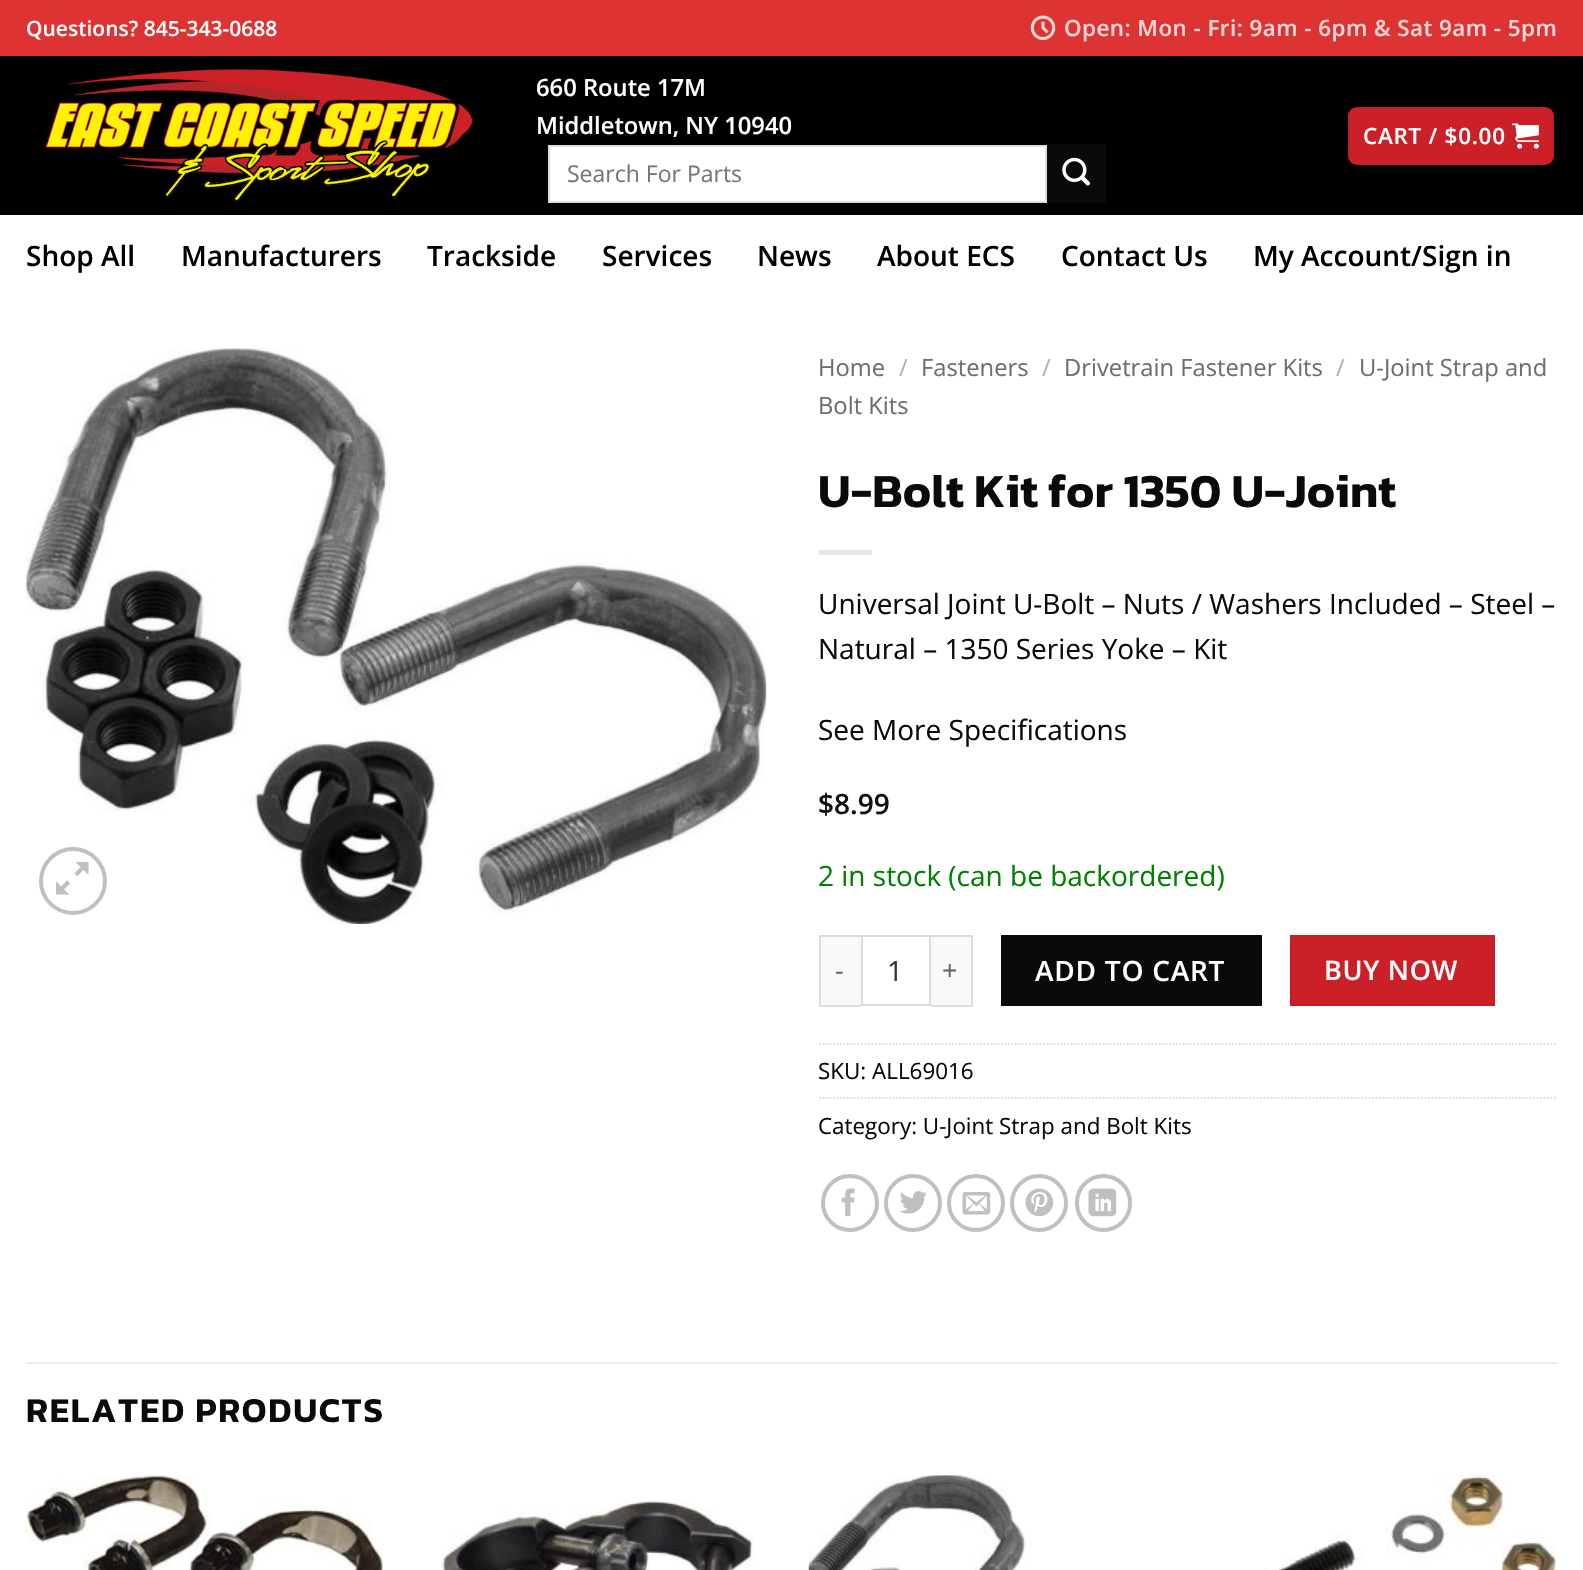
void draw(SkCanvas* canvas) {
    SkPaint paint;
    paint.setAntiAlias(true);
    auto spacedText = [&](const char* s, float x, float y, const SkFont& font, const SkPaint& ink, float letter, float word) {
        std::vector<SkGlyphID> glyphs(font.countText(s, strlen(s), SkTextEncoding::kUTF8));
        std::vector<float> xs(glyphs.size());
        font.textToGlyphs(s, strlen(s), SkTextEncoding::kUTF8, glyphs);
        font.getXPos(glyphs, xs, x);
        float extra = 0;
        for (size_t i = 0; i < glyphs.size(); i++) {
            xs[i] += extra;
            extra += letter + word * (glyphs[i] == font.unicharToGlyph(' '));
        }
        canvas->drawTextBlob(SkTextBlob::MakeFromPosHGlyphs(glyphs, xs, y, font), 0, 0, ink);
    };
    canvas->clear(0xFFFFFFFF);
    paint.setColor(0xFFDD3333);
    canvas->drawRect(SkRect::MakeXYWH(0, 0, 1583, 56), paint);
    SkFont font1(fontMgr->matchFamilyStyle("Open Sans", SkFontStyle(600, SkFontStyle::kNormal_Width, SkFontStyle::kUpright_Slant)), 21);
    font1.setSubpixel(true);
    paint.setColor(0xFFFFFFFF);
    canvas->drawString("Questions? 845-343-0688", 26, 36, font1, paint);
    canvas->drawImageRect(SkImages::DeferredFromEncodedData(SkData::MakeFromFileName("img1.png")), SkRect::MakeXYWH(1030, 15, 26, 25), SkSamplingOptions());
    SkFont font2(fontMgr->matchFamilyStyle("Open Sans", SkFontStyle(600, SkFontStyle::kNormal_Width, SkFontStyle::kUpright_Slant)), 22.4f);
    font2.setSubpixel(true);
    paint.setColor(0xFFF8D6D6);
    spacedText("Open: Mon - Fri: 9am - 6pm & Sat 9am - 5pm", 1064, 36, font2, paint, 0.45f, 0);
    paint.setColor(0xFF000000);
    canvas->drawRect(SkRect::MakeXYWH(0, 56, 1583, 159), paint);
    canvas->drawImageRect(SkImages::DeferredFromEncodedData(SkData::MakeFromFileName("img2.png")), SkRect::MakeXYWH(44, 67, 430, 135), SkSamplingOptions());
    SkFont font3(fontMgr->matchFamilyStyle("Open Sans", SkFontStyle(600, SkFontStyle::kNormal_Width, SkFontStyle::kUpright_Slant)), 23.75f);
    font3.setSubpixel(true);
    paint.setColor(0xFFFFFFFF);
    canvas->drawString("660 Route 17M", 536, 96, font3, paint);
    canvas->drawString("Middletown, NY 10940", 536, 134, font3, paint);
    canvas->drawRect(SkRect::MakeXYWH(549, 146, 497, 56), paint);
    paint.setStyle(SkPaint::kStroke_Style);
    paint.setStrokeWidth(2);
    paint.setColor(0xFFDDDDDD);
    canvas->drawRect(SkRect::MakeXYWH(549, 146, 497, 56), paint);
    SkFont font4(fontMgr->matchFamilyStyle("Open Sans", SkFontStyle::Normal()), 23);
    font4.setSubpixel(true);
    paint.setStyle(SkPaint::kFill_Style);
    paint.setColor(0xFF757575);
    canvas->drawString("Search For Parts", 567, 182, font4, paint);
    paint.setColor(0xFF0A0A0A);
    canvas->drawRect(SkRect::MakeXYWH(1047, 144, 59, 59), paint);
    canvas->drawImageRect(SkImages::DeferredFromEncodedData(SkData::MakeFromFileName("img3.png")), SkRect::MakeXYWH(1062, 157, 28, 29), SkSamplingOptions());
    paint.setColor(0xFFCB2027);
    canvas->drawRoundRect(SkRect::MakeXYWH(1348, 107, 206, 58), 9, 9, paint);
    paint.setStyle(SkPaint::kStroke_Style);
    paint.setColor(0x0D000000);
    canvas->drawRect(SkRect::MakeXYWH(1349, 108, 204, 56), paint);
    paint.setStyle(SkPaint::kFill_Style);
    paint.setColor(0xFFFFFFFF);
    spacedText("CART / $0.00", 1363, 144, font2, paint, 0.75f, 0);
    canvas->drawImageRect(SkImages::DeferredFromEncodedData(SkData::MakeFromFileName("img4.png")), SkRect::MakeXYWH(1512, 123, 27, 26), SkSamplingOptions());
    SkFont font5(fontMgr->matchFamilyStyle("Open Sans", SkFontStyle(600, SkFontStyle::kNormal_Width, SkFontStyle::kUpright_Slant)), 28);
    font5.setSubpixel(true);
    paint.setColor(0xFF000000);
    canvas->drawString("Shop All", 26, 266, font5, paint);
    canvas->drawString("Manufacturers", 181, 266, font5, paint);
    canvas->drawString("Trackside", 427, 266, font5, paint);
    canvas->drawString("Services", 602, 266, font5, paint);
    canvas->drawString("News", 757, 266, font5, paint);
    canvas->drawString("About ECS", 877, 266, font5, paint);
    canvas->drawString("Contact Us", 1061, 266, font5, paint);
    canvas->drawString("My Account/Sign in", 1253, 266, font5, paint);
    canvas->drawImageRect(SkImages::DeferredFromEncodedData(SkData::MakeFromFileName("img5.png")), SkRect::MakeXYWH(26, 348, 741, 576), SkSamplingOptions());
    paint.setStyle(SkPaint::kStroke_Style);
    paint.setStrokeWidth(4);
    paint.setColor(0xFFC0C0C0);
    canvas->drawCircle(73, 881, 32, paint);
    canvas->drawImageRect(SkImages::DeferredFromEncodedData(SkData::MakeFromFileName("img6.png")), SkRect::MakeXYWH(56, 861, 33, 34), SkSamplingOptions());
    SkFont font6(fontMgr->matchFamilyStyle("Open Sans", SkFontStyle::Normal()), 23.75f);
    font6.setSubpixel(true);
    paint.setStyle(SkPaint::kFill_Style);
    paint.setColor(0xFF6E6E6E);
    canvas->drawString("Home", 818, 376, font6, paint);
    paint.setColor(0xFFB2B2B2);
    canvas->drawString("/", 899, 376, font6, paint);
    paint.setColor(0xFF6E6E6E);
    canvas->drawString("Fasteners", 921, 376, font6, paint);
    paint.setColor(0xFFB2B2B2);
    canvas->drawString("/", 1042, 376, font6, paint);
    paint.setColor(0xFF6E6E6E);
    canvas->drawString("Drivetrain Fastener Kits", 1064, 376, font6, paint);
    paint.setColor(0xFFB2B2B2);
    canvas->drawString("/", 1336, 376, font6, paint);
    paint.setColor(0xFF6E6E6E);
    canvas->drawString("U-Joint Strap and", 1359, 376, font6, paint);
    canvas->drawString("Bolt Kits", 818, 414, font6, paint);
    SkFont font7(fontMgr->matchFamilyStyle("Kanit", SkFontStyle(600, SkFontStyle::kNormal_Width, SkFontStyle::kUpright_Slant)), 47.6f);
    font7.setSubpixel(true);
    paint.setColor(0xFF0A0A0A);
    canvas->drawString("U-Bolt Kit for 1350 U-Joint", 818, 507, font7, paint);
    paint.setColor(0xFFE6E6E6);
    canvas->drawRect(SkRect::MakeXYWH(819, 550, 53, 5), paint);
    SkFont font8(fontMgr->matchFamilyStyle("Open Sans", SkFontStyle::Normal()), 28);
    font8.setSubpixel(true);
    paint.setColor(0xFF0A0A0A);
    canvas->drawString("Universal Joint U-Bolt – Nuts / Washers Included – Steel –", 818, 614, font8, paint);
    canvas->drawString("Natural – 1350 Series Yoke – Kit", 818, 659, font8, paint);
    canvas->drawString("See More Specifications", 818, 740, font8, paint);
    paint.setColor(0xFF111111);
    canvas->drawString("$8.99", 818, 814, font5, paint);
    paint.setColor(0xFF008000);
    canvas->drawString("2 in stock (can be backordered)", 818, 886, font8, paint);
    paint.setColor(0xFFF9F9F9);
    canvas->drawRect(SkRect::MakeXYWH(821, 937, 40, 68), paint);
    paint.setColor(0xFFDDDDDD);
    canvas->drawRect(SkRect::MakeXYWH(819, 935, 42, 2), paint);
    canvas->drawRect(SkRect::MakeXYWH(819, 1005, 42, 2), paint);
    canvas->drawRect(SkRect::MakeXYWH(819, 935, 2, 71), paint);
    SkFont font9(fontMgr->matchFamilyStyle("Open Sans", SkFontStyle::Normal()), 27);
    font9.setSubpixel(true);
    paint.setColor(0xFF666666);
    spacedText("-", 835, 980, font9, paint, 0.75f, 0);
    paint.setStyle(SkPaint::kStroke_Style);
    paint.setStrokeWidth(2);
    paint.setColor(0xFFDDDDDD);
    canvas->drawRect(SkRect::MakeXYWH(862, 936, 68, 69), paint);
    paint.setStyle(SkPaint::kFill_Style);
    paint.setColor(0xFF333333);
    canvas->drawString("1", 887, 981, font8, paint);
    paint.setColor(0xFFF9F9F9);
    canvas->drawRect(SkRect::MakeXYWH(931, 937, 40, 68), paint);
    paint.setColor(0xFFDDDDDD);
    canvas->drawRect(SkRect::MakeXYWH(931, 935, 42, 2), paint);
    canvas->drawRect(SkRect::MakeXYWH(971, 935, 2, 71), paint);
    canvas->drawRect(SkRect::MakeXYWH(931, 1005, 42, 2), paint);
    paint.setColor(0xFF666666);
    spacedText("+", 942, 980, font9, paint, 0.75f, 0);
    paint.setColor(0xFF0A0A0A);
    canvas->drawRect(SkRect::MakeXYWH(1001, 935, 261, 71), paint);
    paint.setColor(0xFFFFFFFF);
    spacedText("ADD TO CART", 1035, 981, font5, paint, 0.75f, 0);
    paint.setColor(0xFFCB2027);
    canvas->drawRect(SkRect::MakeXYWH(1291, 936, 203, 69), paint);
    paint.setStyle(SkPaint::kStroke_Style);
    paint.setColor(0xFFC11E25);
    canvas->drawRect(SkRect::MakeXYWH(1291, 936, 203, 69), paint);
    SkFont font10(fontMgr->matchFamilyStyle("Open Sans", SkFontStyle(600, SkFontStyle::kNormal_Width, SkFontStyle::kUpright_Slant)), 27);
    font10.setSubpixel(true);
    paint.setStyle(SkPaint::kFill_Style);
    paint.setColor(0xFFFFFFFF);
    spacedText("BUY NOW", 1324, 980, font10, paint, 0.75f, 0);
    paint.setStyle(SkPaint::kStroke_Style);
    paint.setStrokeWidth(1.8f);
    paint.setColor(0xFFDDDDDD);
    paint.setPathEffect(SkDashPathEffect::Make({{1.75f, 1.75f}}, 0));
    canvas->drawPath(SkPathBuilder().moveTo(819, 1044).lineTo(1557.5f, 1044).detach(), paint);
    paint.setPathEffect(nullptr);
    SkFont font11(fontMgr->matchFamilyStyle("Open Sans", SkFontStyle::Normal()), 22.4f);
    font11.setSubpixel(true);
    paint.setStyle(SkPaint::kFill_Style);
    paint.setColor(0xFF0A0A0A);
    canvas->drawString("SKU: ALL69016", 818, 1079, font11, paint);
    paint.setStyle(SkPaint::kStroke_Style);
    paint.setColor(0xFFDDDDDD);
    paint.setPathEffect(SkDashPathEffect::Make({{1.75f, 1.75f}}, 0));
    canvas->drawPath(SkPathBuilder().moveTo(819, 1098).lineTo(1557.5f, 1098).detach(), paint);
    paint.setPathEffect(nullptr);
    paint.setStyle(SkPaint::kFill_Style);
    paint.setColor(0xFF0A0A0A);
    canvas->drawString("Category: U-Joint Strap and Bolt Kits", 818, 1134, font11, paint);
    paint.setStyle(SkPaint::kStroke_Style);
    paint.setStrokeWidth(4);
    paint.setColor(0xFFC0C0C0);
    canvas->drawCircle(850, 1203, 27, paint);
    canvas->drawImageRect(SkImages::DeferredFromEncodedData(SkData::MakeFromFileName("img7.png")), SkRect::MakeXYWH(841, 1188, 14, 29), SkSamplingOptions());
    canvas->drawCircle(913, 1203, 27, paint);
    canvas->drawImageRect(SkImages::DeferredFromEncodedData(SkData::MakeFromFileName("img8.png")), SkRect::MakeXYWH(900, 1191, 27, 23), SkSamplingOptions());
    canvas->drawCircle(976, 1203, 27, paint);
    canvas->drawImageRect(SkImages::DeferredFromEncodedData(SkData::MakeFromFileName("img9.png")), SkRect::MakeXYWH(962, 1192, 29, 23), SkSamplingOptions());
    canvas->drawCircle(1039, 1203, 27, paint);
    canvas->drawImageRect(SkImages::DeferredFromEncodedData(SkData::MakeFromFileName("img10.png")), SkRect::MakeXYWH(1025, 1188, 29, 29), SkSamplingOptions());
    canvas->drawRoundRect(SkRect::MakeXYWH(1077, 1176, 53, 54), 26.5f, 26.5f, paint);
    canvas->drawImageRect(SkImages::DeferredFromEncodedData(SkData::MakeFromFileName("img11.png")), SkRect::MakeXYWH(1088, 1188, 29, 29), SkSamplingOptions());
    paint.setStyle(SkPaint::kFill_Style);
    paint.setColor(0xFFECECEC);
    canvas->drawRect(SkRect::MakeXYWH(26, 1362, 1532, 2), paint);
    SkFont font12(fontMgr->matchFamilyStyle("Kanit", SkFontStyle(600, SkFontStyle::kNormal_Width, SkFontStyle::kUpright_Slant)), 35);
    font12.setSubpixel(true);
    paint.setColor(0xFF0A0A0A);
    spacedText("RELATED PRODUCTS", 26, 1422, font12, paint, 1.75f, 0);
    canvas->drawImageRect(SkImages::DeferredFromEncodedData(SkData::MakeFromFileName("img12.png")), SkRect::MakeXYWH(26, 1475, 357, 95), SkSamplingOptions());
    canvas->drawImageRect(SkImages::DeferredFromEncodedData(SkData::MakeFromFileName("img13.png")), SkRect::MakeXYWH(441, 1500, 313, 70), SkSamplingOptions());
    canvas->drawImageRect(SkImages::DeferredFromEncodedData(SkData::MakeFromFileName("img14.png")), SkRect::MakeXYWH(808, 1475, 219, 95), SkSamplingOptions());
    canvas->drawImageRect(SkImages::DeferredFromEncodedData(SkData::MakeFromFileName("img15.png")), SkRect::MakeXYWH(1264, 1475, 293, 95), SkSamplingOptions());
}
